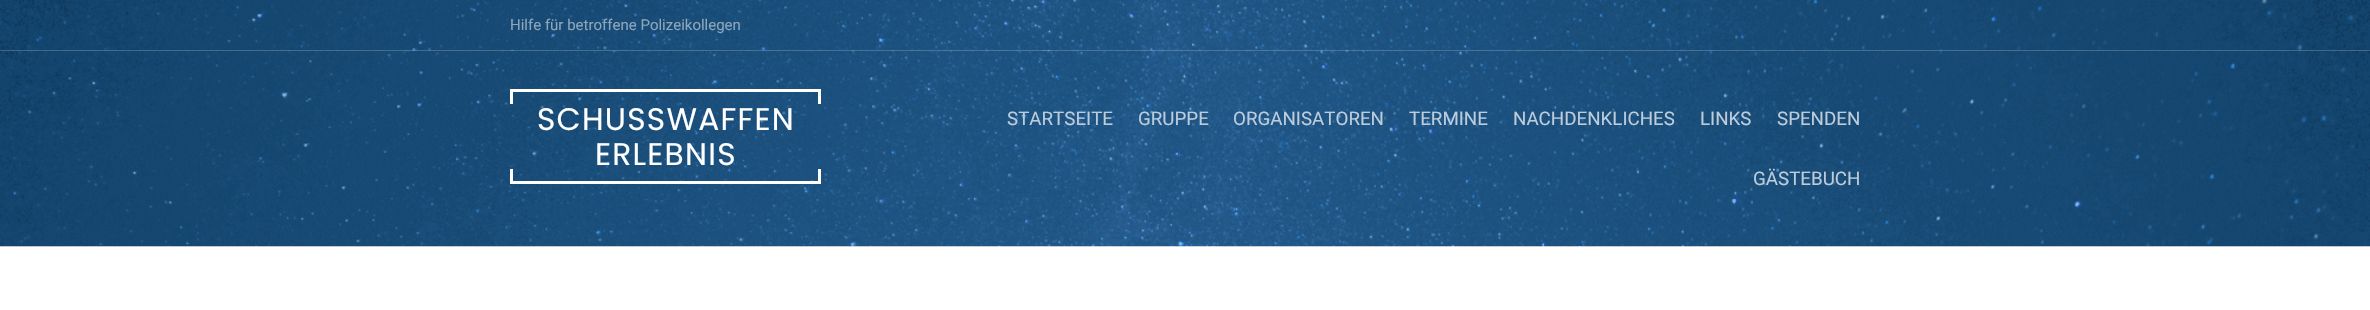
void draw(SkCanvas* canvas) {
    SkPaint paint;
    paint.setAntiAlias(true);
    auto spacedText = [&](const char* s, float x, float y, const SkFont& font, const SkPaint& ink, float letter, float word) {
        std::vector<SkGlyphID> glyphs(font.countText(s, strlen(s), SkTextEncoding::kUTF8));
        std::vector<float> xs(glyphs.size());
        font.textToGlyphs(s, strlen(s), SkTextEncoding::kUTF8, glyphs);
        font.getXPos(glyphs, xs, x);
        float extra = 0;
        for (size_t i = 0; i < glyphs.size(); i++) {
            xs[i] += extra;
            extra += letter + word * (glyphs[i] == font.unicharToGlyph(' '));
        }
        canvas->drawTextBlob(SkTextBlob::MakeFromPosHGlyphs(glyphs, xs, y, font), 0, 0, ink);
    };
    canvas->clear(0xFFFFFFFF);
    canvas->drawImageRect(SkImages::DeferredFromEncodedData(SkData::MakeFromFileName("img1.png")), SkRect::MakeXYWH(0, 0, 2370, 247), SkSamplingOptions());
    paint.setColor(0x33FFFFFF);
    canvas->drawRect(SkRect::MakeXYWH(0, 50, 2370, 1), paint);
    SkFont font1(fontMgr->matchFamilyStyle("Roboto", SkFontStyle::Normal()), 15);
    font1.setSubpixel(true);
    paint.setColor(0xFF8CA6BB);
    canvas->drawString("Hilfe für betroffene Polizeikollegen", 510, 30, font1, paint);
    paint.setColor(0xFFFFFFFF);
    canvas->drawRect(SkRect::MakeXYWH(510, 89, 310, 3), paint);
    canvas->drawRect(SkRect::MakeXYWH(818, 89, 3, 15), paint);
    canvas->drawRect(SkRect::MakeXYWH(510, 89, 3, 15), paint);
    SkFont font2(fontMgr->matchFamilyStyle("Poppins", SkFontStyle::Normal()), 31.25f);
    font2.setSubpixel(true);
    spacedText("SCHUSSWAFFEN", 537, 130, font2, paint, 1.25f, 0);
    spacedText("ERLEBNIS", 595, 165, font2, paint, 1.25f, 0);
    canvas->drawRect(SkRect::MakeXYWH(818, 169, 3, 15), paint);
    canvas->drawRect(SkRect::MakeXYWH(510, 181, 310, 3), paint);
    canvas->drawRect(SkRect::MakeXYWH(510, 169, 3, 15), paint);
    SkFont font3(fontMgr->matchFamilyStyle("Roboto", SkFontStyle::Normal()), 18.75f);
    font3.setSubpixel(true);
    paint.setColor(0xFFBCCCDB);
    canvas->drawString("STARTSEITE", 1007, 125, font3, paint);
    canvas->drawString("GRUPPE", 1138, 125, font3, paint);
    canvas->drawString("ORGANISATOREN", 1233, 125, font3, paint);
    canvas->drawString("TERMINE", 1409, 125, font3, paint);
    canvas->drawString("NACHDENKLICHES", 1513, 125, font3, paint);
    canvas->drawString("LINKS", 1700, 125, font3, paint);
    canvas->drawString("SPENDEN", 1777, 125, font3, paint);
    canvas->drawString("GÄSTEBUCH", 1753, 185, font3, paint);
}
